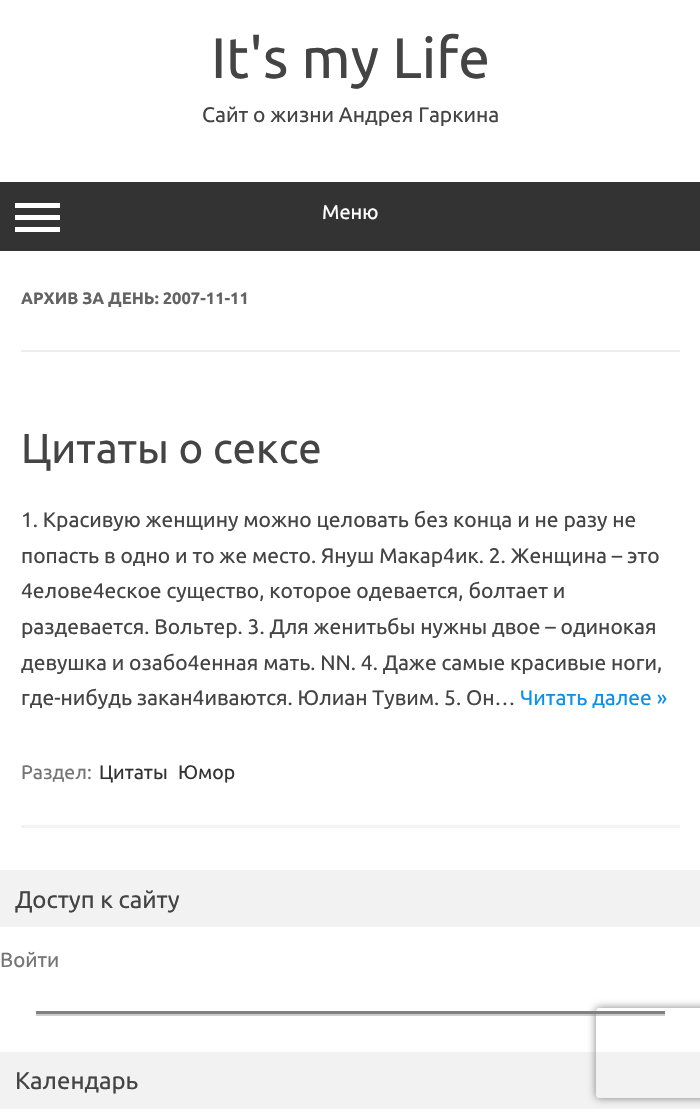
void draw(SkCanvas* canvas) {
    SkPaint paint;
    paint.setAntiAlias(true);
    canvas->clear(0xFFFFFFFF);
    SkFont font1(fontMgr->matchFamilyStyle("Ubuntu", SkFontStyle::Normal()), 57);
    font1.setSubpixel(true);
    paint.setColor(0xFF444444);
    canvas->drawString("It's my Life", 211, 78, font1, paint);
    SkFont font2(fontMgr->matchFamilyStyle("Ubuntu", SkFontStyle::Normal()), 21);
    font2.setSubpixel(true);
    canvas->drawString("Сайт о жизни Андрея Гаркина", 202, 122, font2, paint);
    paint.setColor(0xFF333333);
    canvas->drawRect(SkRect::MakeXYWH(0, 182, 700, 69), paint);
    paint.setColor(0xFFFFFFFF);
    canvas->drawRect(SkRect::MakeXYWH(15, 203, 45, 5), paint);
    canvas->drawRect(SkRect::MakeXYWH(15, 215, 45, 5), paint);
    canvas->drawRect(SkRect::MakeXYWH(15, 227, 45, 5), paint);
    SkFont font3(fontMgr->matchFamilyStyle("Ubuntu", SkFontStyle::Normal()), 20);
    font3.setSubpixel(true);
    canvas->drawString("Меню", 322, 219, font3, paint);
    paint.setColor(0xFFEDEDED);
    canvas->drawRect(SkRect::MakeXYWH(21, 350, 659, 2), paint);
    SkFont font4(fontMgr->matchFamilyStyle("Ubuntu", SkFontStyle::Bold()), 16.5f);
    font4.setSubpixel(true);
    paint.setColor(0xFF636363);
    canvas->drawString("АРХИВ ЗА ДЕНЬ: 2007-11-11", 21, 304, font4, paint);
    paint.setColor(0xFFF3F3F3);
    canvas->drawRect(SkRect::MakeXYWH(21, 825, 659, 3), paint);
    SkFont font5(fontMgr->matchFamilyStyle("Ubuntu", SkFontStyle::Normal()), 42);
    font5.setSubpixel(true);
    paint.setColor(0xFF444444);
    canvas->drawString("Цитаты о сексе", 21, 463, font5, paint);
    canvas->drawString("1. Красивую женщину можно целовать без конца и не разу не", 21, 527, font2, paint);
    canvas->drawString("попасть в одно и то же место. Януш Макар4ик. 2. Женщина – это", 21, 563, font2, paint);
    canvas->drawString("4елове4еское существо, которое одевается, болтает и", 21, 598, font2, paint);
    canvas->drawString("раздевается. Вольтер. 3. Для женитьбы нужны двое – одинокая", 21, 634, font2, paint);
    canvas->drawString("девушка и озабо4енная мать. NN. 4. Даже самые красивые ноги,", 21, 670, font2, paint);
    canvas->drawString("где-нибудь закан4иваются. Юлиан Тувим. 5. Он…", 21, 705, font2, paint);
    paint.setColor(0xFF0B91EA);
    canvas->drawString("Читать далее »", 520, 705, font2, paint);
    SkFont font6(fontMgr->matchFamilyStyle("Ubuntu", SkFontStyle::Normal()), 19.5f);
    font6.setSubpixel(true);
    paint.setColor(0xFF757575);
    canvas->drawString("Раздел:", 21, 779, font6, paint);
    paint.setColor(0xFF333333);
    canvas->drawString("Цитаты", 99, 779, font6, paint);
    canvas->drawString("Юмор", 178, 779, font6, paint);
    paint.setColor(0xFFF2F2F2);
    canvas->drawRect(SkRect::MakeXYWH(0, 870, 700, 57), paint);
    SkFont font7(fontMgr->matchFamilyStyle("Ubuntu", SkFontStyle::Normal()), 24);
    font7.setSubpixel(true);
    paint.setColor(0xFF444444);
    canvas->drawString("Доступ к сайту", 15, 908, font7, paint);
    SkFont font8(fontMgr->matchFamilyStyle("Ubuntu", SkFontStyle::Normal()), 20.5f);
    font8.setSubpixel(true);
    paint.setColor(0xFF757575);
    canvas->drawString("Войти", 0, 967, font8, paint);
    paint.setColor(0xFFCCCCCC);
    canvas->drawRect(SkRect::MakeXYWH(36, 1014, 629, 2), paint);
    paint.setColor(0xFF808080);
    canvas->drawRect(SkRect::MakeXYWH(36, 1011, 629, 3), paint);
    paint.setColor(0xFFF2F2F2);
    canvas->drawRect(SkRect::MakeXYWH(0, 1052, 700, 57), paint);
    paint.setColor(0xFF444444);
    canvas->drawString("Календарь", 15, 1089, font7, paint);
    canvas->save();
    canvas->clipPath(SkPathBuilder(SkPathFillType::kEvenOdd).moveTo(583, 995).lineTo(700, 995).lineTo(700, 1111).lineTo(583, 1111).close().moveTo(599, 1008).lineTo(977, 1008).cubicTo(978.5f, 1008, 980, 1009.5f, 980, 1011).lineTo(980, 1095).cubicTo(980, 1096.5f, 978.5f, 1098, 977, 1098).lineTo(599, 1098).cubicTo(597.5f, 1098, 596, 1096.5f, 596, 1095).lineTo(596, 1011).cubicTo(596, 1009.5f, 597.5f, 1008, 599, 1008).close().detach(), true);
    paint.setColor(0xFF808080);
    paint.setMaskFilter(SkMaskFilter::MakeBlur(kNormal_SkBlurStyle, 4));
    canvas->drawRoundRect(SkRect::MakeXYWH(596, 1008, 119, 90), 3, 3, paint);
    paint.setMaskFilter(nullptr);
    canvas->restore();
}
